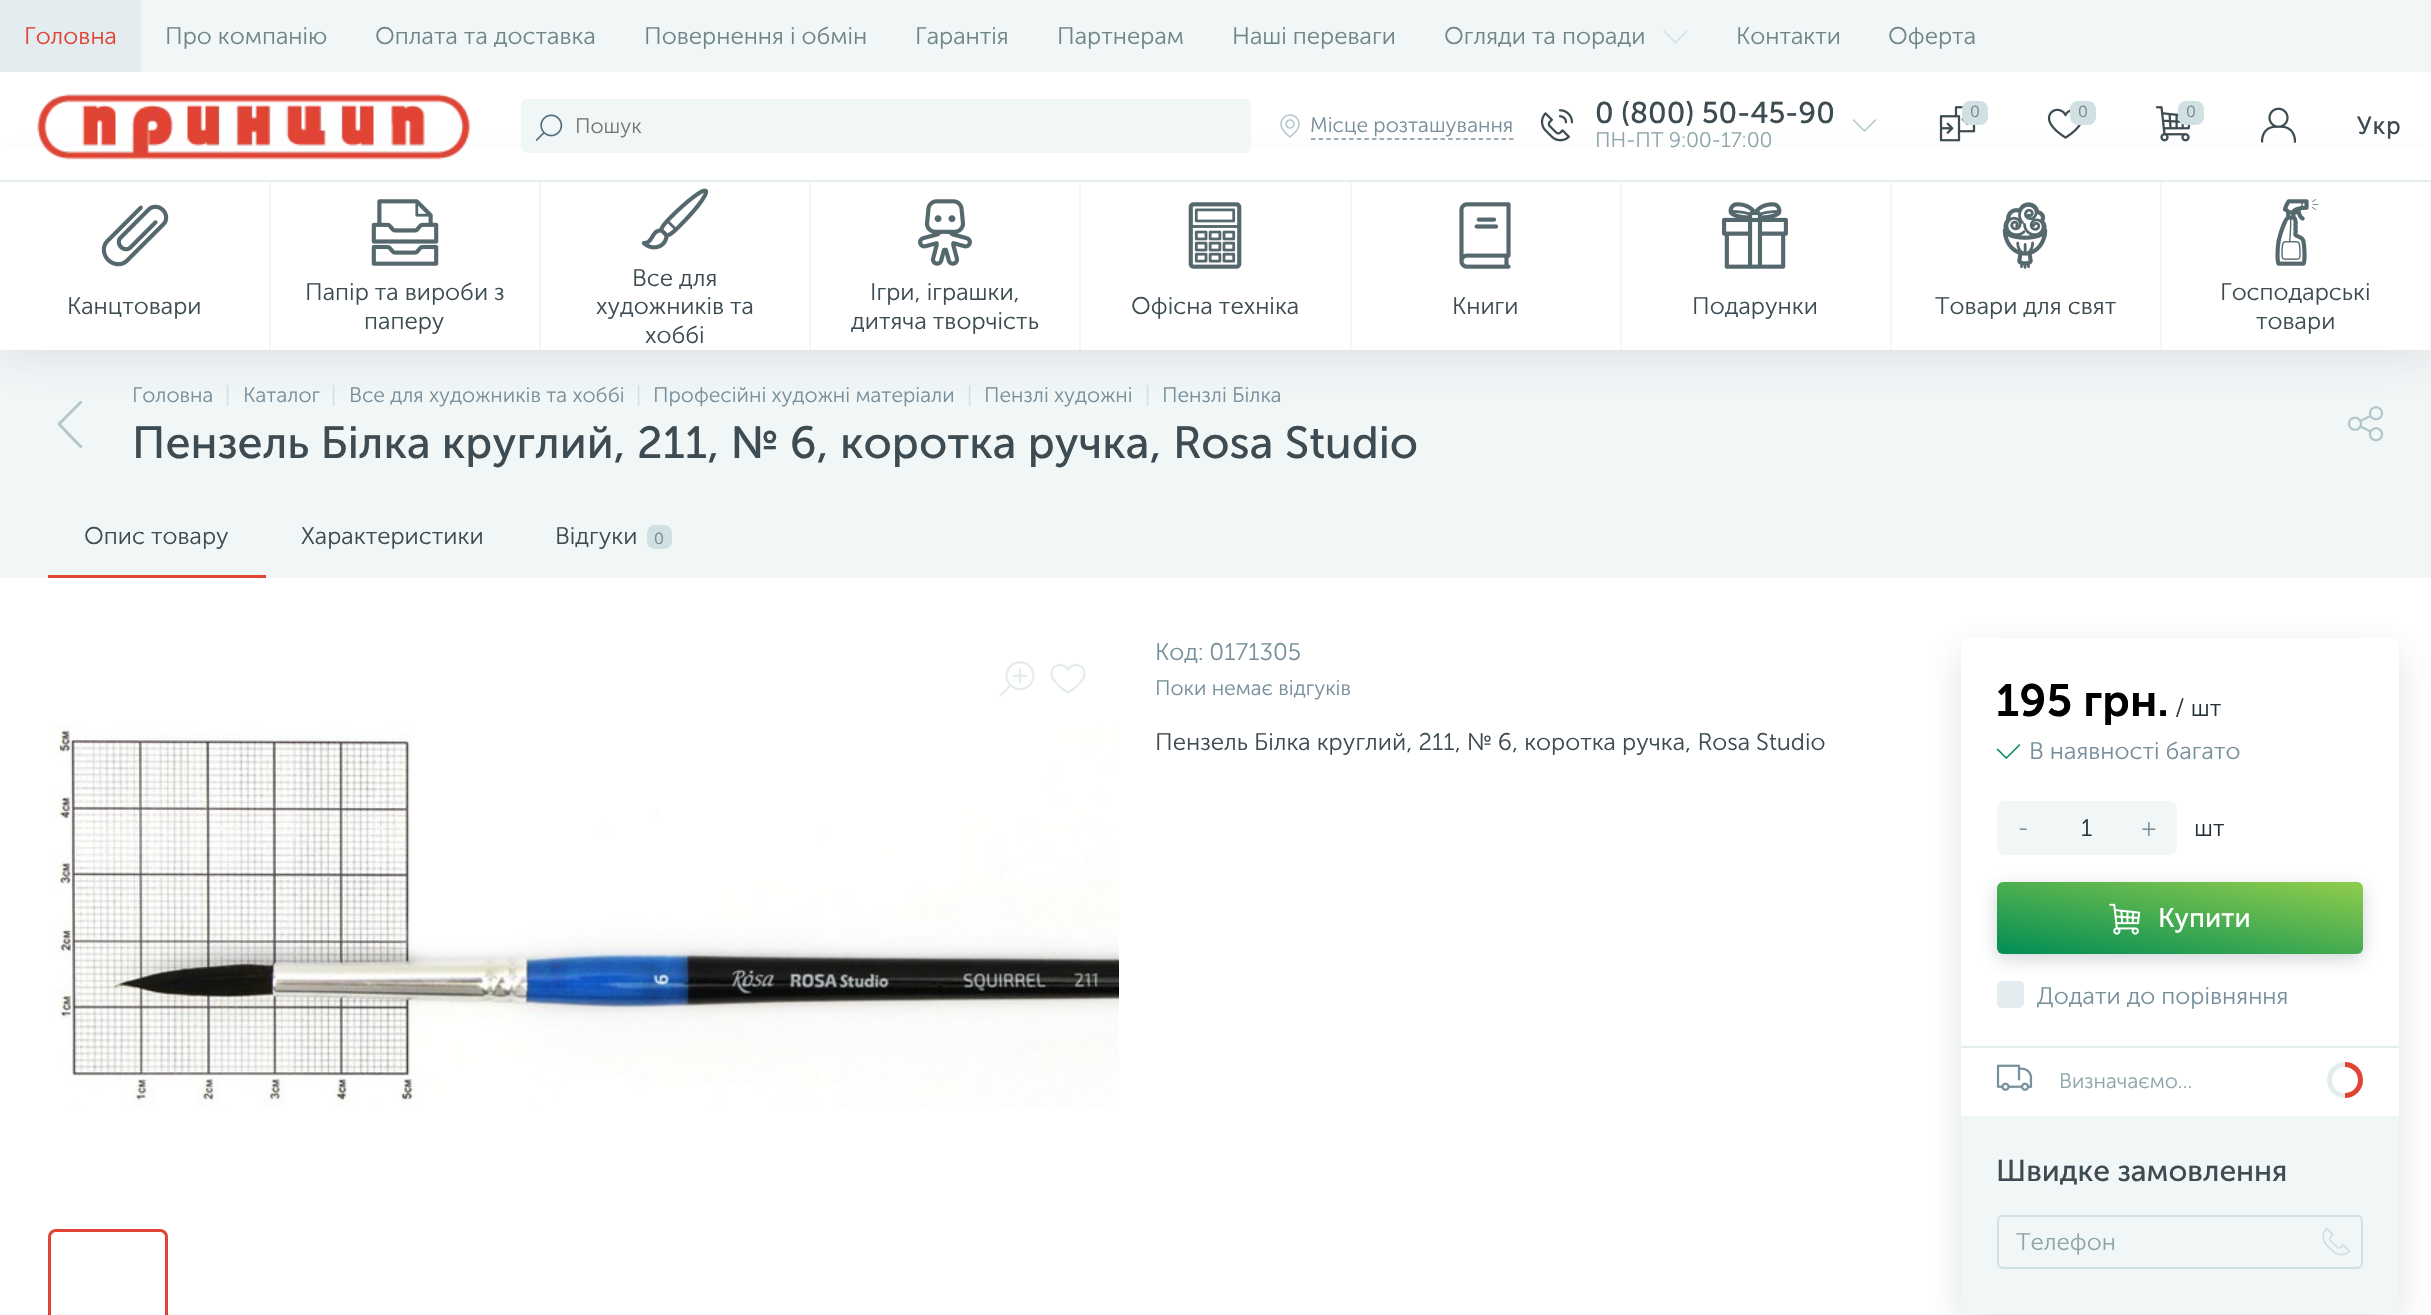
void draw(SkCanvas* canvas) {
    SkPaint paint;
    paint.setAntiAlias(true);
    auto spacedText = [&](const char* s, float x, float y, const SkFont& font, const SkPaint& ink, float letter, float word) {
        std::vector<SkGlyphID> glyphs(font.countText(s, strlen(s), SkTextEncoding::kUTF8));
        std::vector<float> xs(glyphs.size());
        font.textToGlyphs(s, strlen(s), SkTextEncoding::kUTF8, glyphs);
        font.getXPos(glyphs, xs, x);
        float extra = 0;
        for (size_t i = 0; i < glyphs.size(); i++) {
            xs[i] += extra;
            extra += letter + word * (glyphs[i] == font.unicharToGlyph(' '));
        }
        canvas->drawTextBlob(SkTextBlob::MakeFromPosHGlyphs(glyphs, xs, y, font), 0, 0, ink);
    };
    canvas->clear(0xFFFFFFFF);
    paint.setColor(0xFFF1F6F7);
    canvas->drawRect(SkRect::MakeXYWH(141, 0, 2290, 72), paint);
    paint.setColor(0xFFE3ECEF);
    canvas->drawRect(SkRect::MakeXYWH(0, 0, 141, 72), paint);
    SkFont font1(fontMgr->matchFamilyStyle("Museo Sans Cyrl", SkFontStyle(300, SkFontStyle::kNormal_Width, SkFontStyle::kUpright_Slant)), 24);
    font1.setSubpixel(true);
    paint.setColor(0xFFE14435);
    canvas->drawString("Головна", 24, 44, font1, paint);
    paint.setColor(0xFF6E858A);
    canvas->drawString("Про компанію", 165, 44, font1, paint);
    canvas->drawString("Оплата та доставка", 375, 44, font1, paint);
    canvas->drawString("Повернення і обмін", 644, 44, font1, paint);
    canvas->drawString("Гарантія", 915, 44, font1, paint);
    canvas->drawString("Партнерам", 1057, 44, font1, paint);
    canvas->drawString("Наші переваги", 1232, 44, font1, paint);
    canvas->drawString("Огляди та поради", 1444, 44, font1, paint);
    canvas->drawImageRect(SkImages::DeferredFromEncodedData(SkData::MakeFromFileName("img1.png")), SkRect::MakeXYWH(1663, 30, 25, 14), SkSamplingOptions());
    canvas->drawString("Контакти", 1736, 44, font1, paint);
    canvas->drawString("Оферта", 1888, 44, font1, paint);
    paint.setColor(0xFFF1F6F7);
    canvas->drawRect(SkRect::MakeXYWH(0, 350, 2431, 228), paint);
    paint.setColor(0xFFB2C7CB);
    canvas->drawPath(SkPathBuilder().moveTo(81, 448).cubicTo(79, 448, 71, 438, 69, 437).lineTo(62, 429).cubicTo(55, 422, 57, 425, 65, 416).lineTo(80, 401).cubicTo(81, 401, 83, 402, 82, 403).lineTo(61, 424).lineTo(82, 446).cubicTo(83, 447, 82, 448, 81, 448).close().detach(), paint);
    canvas->drawImageRect(SkImages::DeferredFromEncodedData(SkData::MakeFromFileName("img20.png")), SkRect::MakeXYWH(2347, 406, 37, 36), SkSamplingOptions());
    paint.setColor(0x293D4B52);
    paint.setMaskFilter(SkMaskFilter::MakeBlur(kNormal_SkBlurStyle, 24));
    canvas->drawRect(SkRect::MakeXYWH(0, 180, 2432, 170), paint);
    paint.setMaskFilter(nullptr);
    paint.setColor(0xFFFFFFFF);
    canvas->drawRect(SkRect::MakeXYWH(0, 147, 2431, 33), paint);
    canvas->drawImageRect(SkImages::DeferredFromEncodedData(SkData::MakeFromFileName("img2.png")), SkRect::MakeXYWH(37, 94, 433, 66), SkSamplingOptions());
    paint.setColor(0xFFF1F6F7);
    canvas->drawRoundRect(SkRect::MakeXYWH(521, 99, 730, 54), 6, 6, paint);
    canvas->drawImageRect(SkImages::DeferredFromEncodedData(SkData::MakeFromFileName("img3.png")), SkRect::MakeXYWH(535, 114, 28, 27), SkSamplingOptions());
    SkFont font2(fontMgr->matchFamilyStyle("Museo Sans Cyrl", SkFontStyle(300, SkFontStyle::kNormal_Width, SkFontStyle::kUpright_Slant)), 21);
    font2.setSubpixel(true);
    paint.setColor(0xFF757575);
    canvas->drawString("Пошук", 575, 133, font2, paint);
    canvas->drawImageRect(SkImages::DeferredFromEncodedData(SkData::MakeFromFileName("img4.png")), SkRect::MakeXYWH(1280, 114, 20, 24), SkSamplingOptions());
    paint.setStyle(SkPaint::kStroke_Style);
    paint.setStrokeWidth(1.5f);
    paint.setColor(0xFF78909C);
    paint.setPathEffect(SkDashPathEffect::Make({{4.5f, 3.12f}}, 0));
    canvas->drawPath(SkPathBuilder().moveTo(1311, 139).lineTo(1513.5f, 139).detach(), paint);
    paint.setPathEffect(nullptr);
    paint.setStyle(SkPaint::kFill_Style);
    canvas->drawString("Місце розташування", 1310, 132, font2, paint);
    canvas->drawImageRect(SkImages::DeferredFromEncodedData(SkData::MakeFromFileName("img5.png")), SkRect::MakeXYWH(1540, 109, 34, 33), SkSamplingOptions());
    SkFont font3(fontMgr->matchFamilyStyle("Museo Sans Cyrl", SkFontStyle::Normal()), 30);
    font3.setSubpixel(true);
    paint.setColor(0xFF3D4B52);
    canvas->drawString("0 (800) 50-45-90", 1595, 123, font3, paint);
    paint.setColor(0xFF8EA6AB);
    canvas->drawString("ПН-ПТ 9:00-17:00", 1595, 147, font2, paint);
    canvas->drawImageRect(SkImages::DeferredFromEncodedData(SkData::MakeFromFileName("img6.png")), SkRect::MakeXYWH(1852, 119, 25, 13), SkSamplingOptions());
    canvas->drawImageRect(SkImages::DeferredFromEncodedData(SkData::MakeFromFileName("img7.png")), SkRect::MakeXYWH(1939, 106, 37, 36), SkSamplingOptions());
    paint.setColor(0xFFD0E0E3);
    canvas->drawRoundRect(SkRect::MakeXYWH(1962, 101, 26, 24), 8, 8, paint);
    SkFont font4(fontMgr->matchFamilyStyle("Museo Sans Cyrl", SkFontStyle(300, SkFontStyle::kNormal_Width, SkFontStyle::kUpright_Slant)), 16);
    font4.setSubpixel(true);
    paint.setColor(0xFF6E858A);
    canvas->drawString("0", 1970, 117, font4, paint);
    canvas->drawImageRect(SkImages::DeferredFromEncodedData(SkData::MakeFromFileName("img8.png")), SkRect::MakeXYWH(2047, 108, 34, 31), SkSamplingOptions());
    paint.setColor(0xFFD0E0E3);
    canvas->drawRoundRect(SkRect::MakeXYWH(2070, 101, 26, 24), 8, 8, paint);
    paint.setColor(0xFF6E858A);
    canvas->drawString("0", 2078, 117, font4, paint);
    canvas->drawImageRect(SkImages::DeferredFromEncodedData(SkData::MakeFromFileName("img9.png")), SkRect::MakeXYWH(2155, 106, 36, 36), SkSamplingOptions());
    paint.setColor(0xFFD0E0E3);
    canvas->drawRoundRect(SkRect::MakeXYWH(2178, 101, 26, 24), 8, 8, paint);
    paint.setColor(0xFF6E858A);
    canvas->drawString("0", 2186, 117, font4, paint);
    canvas->drawImageRect(SkImages::DeferredFromEncodedData(SkData::MakeFromFileName("img10.png")), SkRect::MakeXYWH(2260, 107, 37, 36), SkSamplingOptions());
    SkFont font5(fontMgr->matchFamilyStyle("Museo Sans Cyrl", SkFontStyle::Bold()), 24);
    font5.setSubpixel(true);
    paint.setColor(0xFF3D4B52);
    spacedText("Укр", 2357, 134, font5, paint, 1.5f, 0);
    paint.setColor(0xFFFFFFFF);
    canvas->drawRect(SkRect::MakeXYWH(0, 182, 2430, 168), paint);
    paint.setColor(0xFFE3ECEF);
    canvas->drawRect(SkRect::MakeXYWH(0, 180, 2431, 2), paint);
    paint.setColor(0xFFF1F6F7);
    canvas->drawRect(SkRect::MakeXYWH(269, 182, 2, 168), paint);
    canvas->drawImageRect(SkImages::DeferredFromEncodedData(SkData::MakeFromFileName("img11.png")), SkRect::MakeXYWH(101, 204, 68, 63), SkSamplingOptions());
    paint.setColor(0xFF3D4B52);
    canvas->drawString("Канцтовари", 67, 314, font1, paint);
    paint.setColor(0xFFF1F6F7);
    canvas->drawRect(SkRect::MakeXYWH(539, 182, 2, 168), paint);
    canvas->drawImageRect(SkImages::DeferredFromEncodedData(SkData::MakeFromFileName("img12.png")), SkRect::MakeXYWH(371, 199, 68, 67), SkSamplingOptions());
    paint.setColor(0xFF3D4B52);
    canvas->drawString("Папір та вироби з", 305, 300, font1, paint);
    canvas->drawString("паперу", 364, 329, font1, paint);
    paint.setColor(0xFFF1F6F7);
    canvas->drawRect(SkRect::MakeXYWH(809, 182, 2, 168), paint);
    canvas->drawImageRect(SkImages::DeferredFromEncodedData(SkData::MakeFromFileName("img13.png")), SkRect::MakeXYWH(641, 188, 68, 62), SkSamplingOptions());
    paint.setColor(0xFF3D4B52);
    canvas->drawString("Все для", 632, 286, font1, paint);
    canvas->drawString("художників та", 596, 314, font1, paint);
    canvas->drawString("хоббі", 645, 343, font1, paint);
    paint.setColor(0xFFF1F6F7);
    canvas->drawRect(SkRect::MakeXYWH(1079, 182, 2, 168), paint);
    canvas->drawImageRect(SkImages::DeferredFromEncodedData(SkData::MakeFromFileName("img14.png")), SkRect::MakeXYWH(918, 199, 54, 67), SkSamplingOptions());
    paint.setColor(0xFF3D4B52);
    canvas->drawString("Ігри, іграшки,", 870, 300, font1, paint);
    canvas->drawString("дитяча творчість", 851, 329, font1, paint);
    paint.setColor(0xFFF1F6F7);
    canvas->drawRect(SkRect::MakeXYWH(1350, 182, 2, 168), paint);
    canvas->drawImageRect(SkImages::DeferredFromEncodedData(SkData::MakeFromFileName("img15.png")), SkRect::MakeXYWH(1188, 202, 54, 67), SkSamplingOptions());
    paint.setColor(0xFF3D4B52);
    canvas->drawString("Офісна техніка", 1131, 314, font1, paint);
    paint.setColor(0xFFF1F6F7);
    canvas->drawRect(SkRect::MakeXYWH(1620, 182, 2, 168), paint);
    canvas->drawImageRect(SkImages::DeferredFromEncodedData(SkData::MakeFromFileName("img16.png")), SkRect::MakeXYWH(1459, 202, 52, 67), SkSamplingOptions());
    paint.setColor(0xFF3D4B52);
    canvas->drawString("Книги", 1452, 314, font1, paint);
    paint.setColor(0xFFF1F6F7);
    canvas->drawRect(SkRect::MakeXYWH(1890, 182, 2, 168), paint);
    canvas->drawImageRect(SkImages::DeferredFromEncodedData(SkData::MakeFromFileName("img17.png")), SkRect::MakeXYWH(1722, 202, 66, 67), SkSamplingOptions());
    paint.setColor(0xFF3D4B52);
    canvas->drawString("Подарунки", 1692, 314, font1, paint);
    paint.setColor(0xFFF1F6F7);
    canvas->drawRect(SkRect::MakeXYWH(2160, 182, 2, 168), paint);
    canvas->drawImageRect(SkImages::DeferredFromEncodedData(SkData::MakeFromFileName("img18.png")), SkRect::MakeXYWH(2002, 202, 46, 67), SkSamplingOptions());
    paint.setColor(0xFF3D4B52);
    canvas->drawString("Товари для свят", 1935, 314, font1, paint);
    paint.setColor(0xFFF1F6F7);
    canvas->drawRect(SkRect::MakeXYWH(2430, 182, 1, 168), paint);
    canvas->drawImageRect(SkImages::DeferredFromEncodedData(SkData::MakeFromFileName("img19.png")), SkRect::MakeXYWH(2275, 199, 44, 67), SkSamplingOptions());
    paint.setColor(0xFF3D4B52);
    canvas->drawString("Господарські", 2220, 300, font1, paint);
    canvas->drawString("товари", 2256, 329, font1, paint);
    paint.setColor(0xFF78909C);
    canvas->drawString("Головна", 132, 402, font2, paint);
    paint.setColor(0xFFD0E0E3);
    canvas->drawString("|", 225, 402, font2, paint);
    paint.setColor(0xFF78909C);
    canvas->drawString("Каталог", 243, 402, font2, paint);
    paint.setColor(0xFFD0E0E3);
    canvas->drawString("|", 331, 402, font2, paint);
    paint.setColor(0xFF78909C);
    canvas->drawString("Все для художників та хоббі", 349, 402, font2, paint);
    paint.setColor(0xFFD0E0E3);
    canvas->drawString("|", 636, 402, font2, paint);
    paint.setColor(0xFF78909C);
    canvas->drawString("Професійні художні матеріали", 653, 402, font2, paint);
    paint.setColor(0xFFD0E0E3);
    canvas->drawString("|", 967, 402, font2, paint);
    paint.setColor(0xFF78909C);
    canvas->drawString("Пензлі художні", 984, 402, font2, paint);
    paint.setColor(0xFFD0E0E3);
    canvas->drawString("|", 1145, 402, font2, paint);
    paint.setColor(0xFF78909C);
    canvas->drawString("Пензлі Білка", 1162, 402, font2, paint);
    SkFont font6(fontMgr->matchFamilyStyle("Museo Sans Cyrl", SkFontStyle::Normal()), 45);
    font6.setSubpixel(true);
    paint.setColor(0xFF3D4B52);
    canvas->drawString("Пензель Білка круглий, 211, № 6, коротка ручка, Rosa Studio", 132, 458, font6, paint);
    canvas->drawString("Опис товару", 84, 544, font1, paint);
    paint.setColor(0xFFE14435);
    canvas->drawRect(SkRect::MakeXYWH(48, 575, 218, 3), paint);
    paint.setColor(0xFF3D4B52);
    canvas->drawString("Характеристики", 301, 544, font1, paint);
    canvas->drawString("Відгуки", 555, 544, font1, paint);
    paint.setColor(0xFFD0E0E3);
    canvas->drawRoundRect(SkRect::MakeXYWH(647, 525, 25, 24), 8, 8, paint);
    paint.setColor(0xFF6E858A);
    canvas->drawString("0", 654, 544, font4, paint);
    canvas->drawImageRect(SkImages::DeferredFromEncodedData(SkData::MakeFromFileName("img21.png")), SkRect::MakeXYWH(999, 661, 36, 36), SkSamplingOptions());
    canvas->drawImageRect(SkImages::DeferredFromEncodedData(SkData::MakeFromFileName("img22.png")), SkRect::MakeXYWH(1050, 663, 36, 31), SkSamplingOptions());
    canvas->drawImageRect(SkImages::DeferredFromEncodedData(SkData::MakeFromFileName("img23.png")), SkRect::MakeXYWH(51, 723, 1068, 384), SkSamplingOptions());
    paint.setStyle(SkPaint::kStroke_Style);
    paint.setStrokeWidth(3);
    paint.setColor(0xFFE14435);
    canvas->drawRoundRect(SkRect::MakeXYWH(49.5f, 1230.5f, 117, 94), 6.5f, 6.5f, paint);
    paint.setStyle(SkPaint::kFill_Style);
    paint.setColor(0xFF78909C);
    canvas->drawString("Код: 0171305", 1155, 660, font1, paint);
    canvas->drawString("Поки немає відгуків", 1155, 695, font2, paint);
    paint.setColor(0xFF3D4B52);
    canvas->drawString("Пензель Білка круглий, 211, № 6, коротка ручка, Rosa Studio", 1155, 750, font1, paint);
    paint.setColor(0x293D4B52);
    paint.setMaskFilter(SkMaskFilter::MakeBlur(kNormal_SkBlurStyle, 18));
    canvas->drawRoundRect(SkRect::MakeXYWH(1961, 651, 438, 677), 8, 8, paint);
    paint.setMaskFilter(nullptr);
    paint.setColor(0xFFFFFFFF);
    canvas->drawRoundRect(SkRect::MakeXYWH(1961, 638, 438, 676), 8, 8, paint);
    SkFont font7(fontMgr->matchFamilyStyle("Museo Sans Cyrl", SkFontStyle(600, SkFontStyle::kNormal_Width, SkFontStyle::kUpright_Slant)), 45);
    font7.setSubpixel(true);
    paint.setColor(0xFF000000);
    canvas->drawString("195 грн.", 1996, 716, font7, paint);
    paint.setColor(0xFF263238);
    canvas->drawString("/ шт", 2175, 716, font1, paint);
    canvas->drawImageRect(SkImages::DeferredFromEncodedData(SkData::MakeFromFileName("img24.png")), SkRect::MakeXYWH(1996, 744, 25, 15), SkSamplingOptions());
    paint.setColor(0xFF78909C);
    canvas->drawString("В наявності багато", 2029, 759, font1, paint);
    paint.setColor(0xFFF1F6F7);
    canvas->drawPath(SkPathBuilder().moveTo(2005, 801).lineTo(2051, 801).lineTo(2051, 855).lineTo(2005, 855).cubicTo(2000.5f, 855, 1997, 851.5f, 1997, 847).lineTo(1997, 809).cubicTo(1997, 804.5f, 2000.5f, 801, 2005, 801).close().detach(), paint);
    paint.setColor(0xFF78909C);
    canvas->drawString("-", 2018, 836, font1, paint);
    paint.setColor(0xFFF1F6F7);
    canvas->drawRect(SkRect::MakeXYWH(2051, 801, 72, 54), paint);
    paint.setColor(0xFF263238);
    canvas->drawString("1", 2081, 836, font1, paint);
    paint.setColor(0xFFF1F6F7);
    canvas->drawPath(SkPathBuilder().moveTo(2123, 801).lineTo(2169, 801).cubicTo(2173.5f, 801, 2177, 804.5f, 2177, 809).lineTo(2177, 847).cubicTo(2177, 851.5f, 2173.5f, 855, 2169, 855).lineTo(2123, 855).close().detach(), paint);
    paint.setColor(0xFF78909C);
    canvas->drawString("+", 2142, 836, font1, paint);
    paint.setColor(0xFF263238);
    canvas->drawString("шт", 2194, 836, font1, paint);
    paint.setColor(0xFFE3ECEF);
    canvas->drawRoundRect(SkRect::MakeXYWH(1997, 981, 27, 27), 5, 5, paint);
    paint.setColor(0x3D3D4B52);
    paint.setMaskFilter(SkMaskFilter::MakeBlur(kNormal_SkBlurStyle, 9));
    canvas->drawRoundRect(SkRect::MakeXYWH(1997, 887, 366, 72), 6, 6, paint);
    paint.setMaskFilter(nullptr);
    {
        const SkColor colors[] = {0xFF008D55, 0xFF91CD4C};
        const float stops[] = {0, 1};
        const SkPoint ends[] = {{2168, 984}, {2191, 852}};
        paint.setShader(SkGradientShader::MakeLinear(ends, colors, stops, 2, SkTileMode::kClamp));
        paint.setAlpha(255);
    }
    canvas->drawRoundRect(SkRect::MakeXYWH(1997, 882, 366, 72), 6, 6, paint);
    canvas->drawImageRect(SkImages::DeferredFromEncodedData(SkData::MakeFromFileName("img25.png")), SkRect::MakeXYWH(2109, 903, 32, 32), SkSamplingOptions());
    SkFont font8(fontMgr->matchFamilyStyle("Museo Sans Cyrl", SkFontStyle::Normal()), 27);
    font8.setSubpixel(true);
    paint.setShader(nullptr);
    paint.setColor(0xFFFFFFFF);
    canvas->drawString("Купити", 2158, 927, font8, paint);
    paint.setColor(0xFF78909C);
    canvas->drawString("Додати до порівняння", 2037, 1004, font1, paint);
    paint.setColor(0xFFE3ECEF);
    canvas->drawRect(SkRect::MakeXYWH(1961, 1046, 438, 2), paint);
    canvas->drawImageRect(SkImages::DeferredFromEncodedData(SkData::MakeFromFileName("img26.png")), SkRect::MakeXYWH(1996, 1064, 37, 27), SkSamplingOptions());
    paint.setColor(0xFF8EA6AB);
    canvas->drawString("Визначаємо...", 2059, 1088, font2, paint);
    paint.setStyle(SkPaint::kStroke_Style);
    paint.setStrokeWidth(5);
    paint.setColor(0xFFE3ECEF);
    canvas->drawCircle(2345, 1080, 15.5f, paint);
    canvas->save();
    canvas->clipRect(SkRect::MakeXYWH(2345, 1062, 18, 36));
    paint.setColor(0xFFE14435);
    canvas->drawCircle(2345, 1080, 15.5f, paint);
    canvas->restore();
    paint.setStyle(SkPaint::kFill_Style);
    paint.setColor(0xFFF1F6F7);
    canvas->drawPath(SkPathBuilder().moveTo(1961, 1116).lineTo(2399, 1116).lineTo(2399, 1306).cubicTo(2399, 1310.5f, 2395.5f, 1314, 2391, 1314).lineTo(1969, 1314).cubicTo(1964.5f, 1314, 1961, 1310.5f, 1961, 1306).close().detach(), paint);
    paint.setColor(0xFF3D4B52);
    canvas->drawString("Швидке замовлення", 1996, 1181, font3, paint);
    paint.setStyle(SkPaint::kStroke_Style);
    paint.setStrokeWidth(2);
    paint.setColor(0xFFD0E0E3);
    canvas->drawRoundRect(SkRect::MakeXYWH(1998, 1216, 364, 52), 5, 5, paint);
    paint.setStyle(SkPaint::kFill_Style);
    paint.setColor(0xFF8EA6AB);
    canvas->drawString("Телефон", 2016, 1250, font1, paint);
    canvas->drawImageRect(SkImages::DeferredFromEncodedData(SkData::MakeFromFileName("img27.png")), SkRect::MakeXYWH(2322, 1227, 28, 29), SkSamplingOptions());
}
